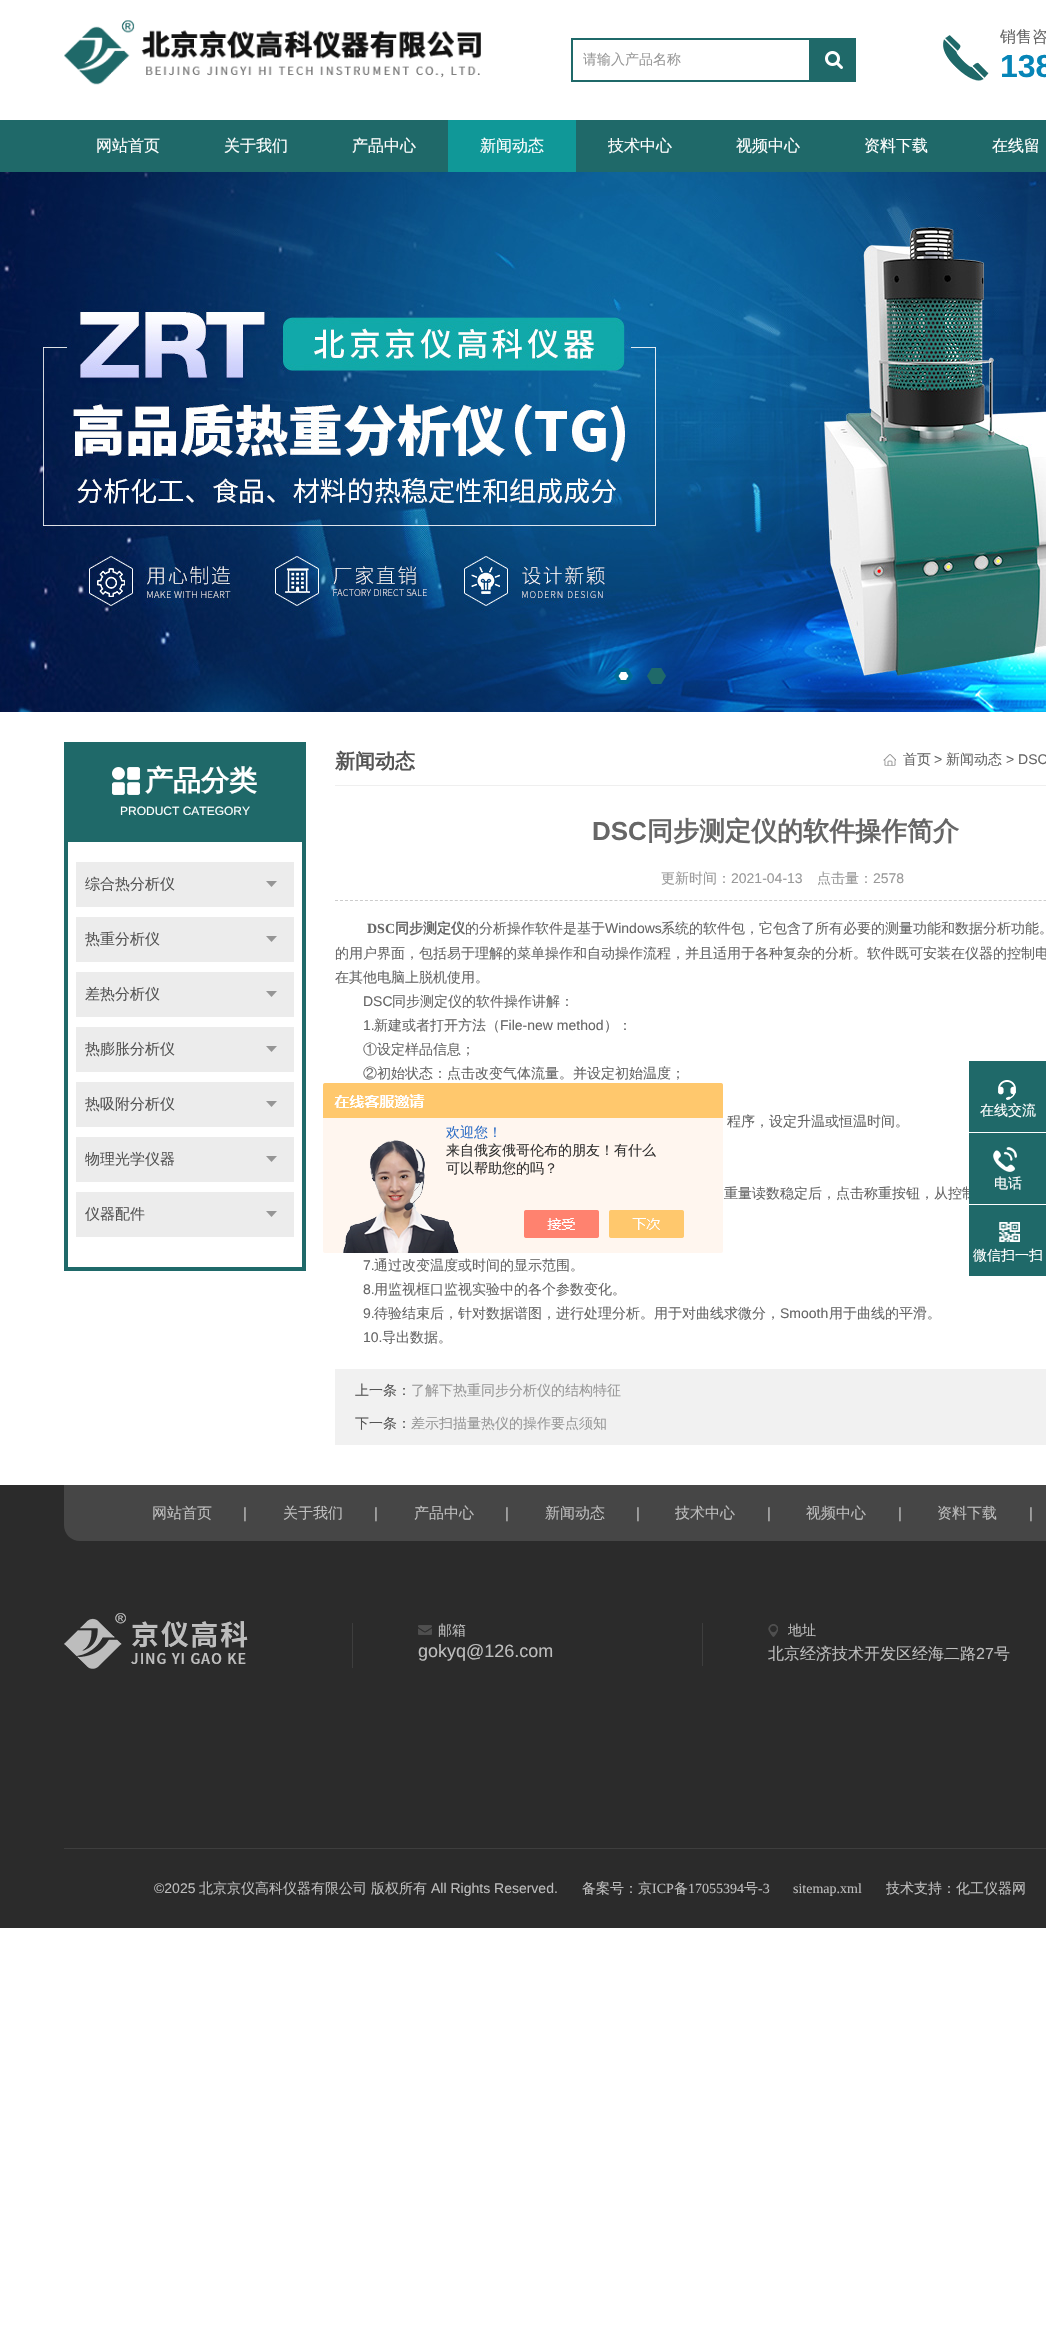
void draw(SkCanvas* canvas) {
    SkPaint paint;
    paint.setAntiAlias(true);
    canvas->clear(0xFFFFFFFF);
    canvas->drawImageRect(SkImages::DeferredFromEncodedData(SkData::MakeFromFileName("img1.png")), SkRect::MakeXYWH(64, 20, 417, 65), SkSamplingOptions());
    paint.setStyle(SkPaint::kStroke_Style);
    paint.setStrokeWidth(2);
    paint.setColor(0xFF1F6969);
    canvas->drawRect(SkRect::MakeXYWH(572, 39, 238, 42), paint);
    SkFont font1(fontMgr->matchFamilyStyle("WenQuanYi Zen Hei", SkFontStyle(500, SkFontStyle::kNormal_Width, SkFontStyle::kUpright_Slant)), 14);
    font1.setSubpixel(true);
    paint.setStyle(SkPaint::kFill_Style);
    paint.setColor(0xFF999999);
    canvas->drawString("请输入产品名称", 583, 64, font1, paint);
    paint.setColor(0xFF1F6969);
    canvas->drawRect(SkRect::MakeXYWH(811, 38, 45, 44), paint);
    canvas->drawImageRect(SkImages::DeferredFromEncodedData(SkData::MakeFromFileName("img2.png")), SkRect::MakeXYWH(825, 51, 18, 18), SkSamplingOptions());
    canvas->drawImageRect(SkImages::DeferredFromEncodedData(SkData::MakeFromFileName("img3.png")), SkRect::MakeXYWH(943, 35, 46, 46), SkSamplingOptions());
    SkFont font2(fontMgr->matchFamilyStyle("WenQuanYi Zen Hei", SkFontStyle(500, SkFontStyle::kNormal_Width, SkFontStyle::kUpright_Slant)), 16);
    font2.setSubpixel(true);
    paint.setColor(0xFF666666);
    canvas->drawString("销售咨", 1000, 42, font2, paint);
    SkFont font3(fontMgr->matchFamilyStyle("Liberation Sans", SkFontStyle::Bold()), 32);
    font3.setSubpixel(true);
    paint.setColor(0xFF0685B7);
    canvas->drawString("138", 1000, 77, font3, paint);
    paint.setColor(0xFF1F6969);
    canvas->drawRect(SkRect::MakeXYWH(0, 120, 1046, 52), paint);
    paint.setColor(0xFFFFFFFF);
    canvas->drawString("网站首页", 96, 151, font2, paint);
    canvas->drawString("关于我们", 224, 151, font2, paint);
    canvas->drawString("产品中心", 352, 151, font2, paint);
    paint.setColor(0xFF109898);
    canvas->drawRect(SkRect::MakeXYWH(448, 120, 128, 52), paint);
    paint.setColor(0xFFFFFFFF);
    canvas->drawString("新闻动态", 480, 151, font2, paint);
    canvas->drawString("技术中心", 608, 151, font2, paint);
    canvas->drawString("视频中心", 736, 151, font2, paint);
    canvas->drawString("资料下载", 864, 151, font2, paint);
    canvas->drawString("在线留", 992, 151, font2, paint);
    canvas->drawImageRect(SkImages::DeferredFromEncodedData(SkData::MakeFromFileName("img4.png")), SkRect::MakeXYWH(0, 172, 1046, 540), SkSamplingOptions());
    canvas->drawImageRect(SkImages::DeferredFromEncodedData(SkData::MakeFromFileName("img5.png")), SkRect::MakeXYWH(614, 668, 19, 16), SkSamplingOptions());
    canvas->drawImageRect(SkImages::DeferredFromEncodedData(SkData::MakeFromFileName("img6.png")), SkRect::MakeXYWH(647, 668, 19, 16), SkSamplingOptions());
    paint.setColor(0xFF1F6969);
    canvas->drawRect(SkRect::MakeXYWH(64, 742, 242, 100), paint);
    canvas->drawImageRect(SkImages::DeferredFromEncodedData(SkData::MakeFromFileName("img7.png")), SkRect::MakeXYWH(112, 767, 28, 28), SkSamplingOptions());
    SkFont font4(fontMgr->matchFamilyStyle("WenQuanYi Zen Hei", SkFontStyle::Bold()), 28);
    font4.setSubpixel(true);
    paint.setColor(0xFFFFFFFF);
    canvas->drawString("产品分类", 145, 790, font4, paint);
    SkFont font5(fontMgr->matchFamilyStyle("Liberation Sans", SkFontStyle::Normal()), 12);
    font5.setSubpixel(true);
    canvas->drawString("PRODUCT CATEGORY", 120, 815, font5, paint);
    paint.setColor(0xFF1F6969);
    canvas->drawRect(SkRect::MakeXYWH(302, 842, 4, 429), paint);
    canvas->drawRect(SkRect::MakeXYWH(64, 1267, 242, 4), paint);
    canvas->drawRect(SkRect::MakeXYWH(64, 842, 4, 429), paint);
    paint.setColor(0xFFECECEC);
    canvas->drawRect(SkRect::MakeXYWH(76, 862, 218, 45), paint);
    SkFont font6(fontMgr->matchFamilyStyle("WenQuanYi Zen Hei", SkFontStyle(500, SkFontStyle::kNormal_Width, SkFontStyle::kUpright_Slant)), 15);
    font6.setSubpixel(true);
    paint.setColor(0xFF555555);
    canvas->drawString("综合热分析仪", 85, 889, font6, paint);
    canvas->drawImageRect(SkImages::DeferredFromEncodedData(SkData::MakeFromFileName("img8.png")), SkRect::MakeXYWH(266, 881, 11, 6), SkSamplingOptions());
    paint.setColor(0xFFECECEC);
    canvas->drawRect(SkRect::MakeXYWH(76, 917, 218, 45), paint);
    paint.setColor(0xFF555555);
    canvas->drawString("热重分析仪", 85, 944, font6, paint);
    canvas->drawImageRect(SkImages::DeferredFromEncodedData(SkData::MakeFromFileName("img8.png")), SkRect::MakeXYWH(266, 936, 11, 6), SkSamplingOptions());
    paint.setColor(0xFFECECEC);
    canvas->drawRect(SkRect::MakeXYWH(76, 972, 218, 45), paint);
    paint.setColor(0xFF555555);
    canvas->drawString("差热分析仪", 85, 999, font6, paint);
    canvas->drawImageRect(SkImages::DeferredFromEncodedData(SkData::MakeFromFileName("img8.png")), SkRect::MakeXYWH(266, 991, 11, 6), SkSamplingOptions());
    paint.setColor(0xFFECECEC);
    canvas->drawRect(SkRect::MakeXYWH(76, 1027, 218, 45), paint);
    paint.setColor(0xFF555555);
    canvas->drawString("热膨胀分析仪", 85, 1054, font6, paint);
    canvas->drawImageRect(SkImages::DeferredFromEncodedData(SkData::MakeFromFileName("img8.png")), SkRect::MakeXYWH(266, 1046, 11, 6), SkSamplingOptions());
    paint.setColor(0xFFECECEC);
    canvas->drawRect(SkRect::MakeXYWH(76, 1082, 218, 45), paint);
    paint.setColor(0xFF555555);
    canvas->drawString("热吸附分析仪", 85, 1109, font6, paint);
    canvas->drawImageRect(SkImages::DeferredFromEncodedData(SkData::MakeFromFileName("img8.png")), SkRect::MakeXYWH(266, 1101, 11, 6), SkSamplingOptions());
    paint.setColor(0xFFECECEC);
    canvas->drawRect(SkRect::MakeXYWH(76, 1137, 218, 45), paint);
    paint.setColor(0xFF555555);
    canvas->drawString("物理光学仪器", 85, 1164, font6, paint);
    canvas->drawImageRect(SkImages::DeferredFromEncodedData(SkData::MakeFromFileName("img8.png")), SkRect::MakeXYWH(266, 1156, 11, 6), SkSamplingOptions());
    paint.setColor(0xFFECECEC);
    canvas->drawRect(SkRect::MakeXYWH(76, 1192, 218, 45), paint);
    paint.setColor(0xFF555555);
    canvas->drawString("仪器配件", 85, 1219, font6, paint);
    canvas->drawImageRect(SkImages::DeferredFromEncodedData(SkData::MakeFromFileName("img8.png")), SkRect::MakeXYWH(266, 1211, 11, 6), SkSamplingOptions());
    paint.setColor(0xFFEFEFEF);
    canvas->drawRect(SkRect::MakeXYWH(335, 785, 711, 1), paint);
    SkFont font7(fontMgr->matchFamilyStyle("WenQuanYi Zen Hei", SkFontStyle::Bold()), 20);
    font7.setSubpixel(true);
    paint.setColor(0xFF555555);
    canvas->drawString("新闻动态", 335, 768, font7, paint);
    canvas->drawImageRect(SkImages::DeferredFromEncodedData(SkData::MakeFromFileName("img9.png")), SkRect::MakeXYWH(883, 754, 13, 12), SkSamplingOptions());
    paint.setColor(0xFF666666);
    canvas->drawString("首页", 903, 764, font1, paint);
    SkFont font8(fontMgr->matchFamilyStyle("Liberation Sans", SkFontStyle::Normal()), 14);
    font8.setSubpixel(true);
    canvas->drawString(">", 934, 764, font8, paint);
    canvas->drawString("新闻动态", 946, 764, font1, paint);
    canvas->drawString("> DSC", 1006, 764, font8, paint);
    SkFont font9(fontMgr->matchFamilyStyle("Liberation Sans", SkFontStyle::Bold()), 26);
    font9.setSubpixel(true);
    canvas->drawString("DSC", 592, 840, font9, paint);
    SkFont font10(fontMgr->matchFamilyStyle("WenQuanYi Zen Hei", SkFontStyle::Bold()), 26);
    font10.setSubpixel(true);
    canvas->drawString("同步测定仪的软件操作简介", 647, 840, font10, paint);
    paint.setStyle(SkPaint::kStroke_Style);
    paint.setStrokeWidth(1);
    paint.setColor(0xFFCCCCCC);
    paint.setPathEffect(SkDashPathEffect::Make({{3, 1.99f}}, 0));
    canvas->drawPath(SkPathBuilder().moveTo(335, 900.5f).lineTo(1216, 900.5f).detach(), paint);
    paint.setPathEffect(nullptr);
    paint.setStyle(SkPaint::kFill_Style);
    paint.setColor(0xFF999999);
    canvas->drawString("更新时间：", 661, 883, font1, paint);
    canvas->drawString("2021-04-13", 731, 883, font8, paint);
    canvas->drawString("点击量：", 817, 883, font1, paint);
    canvas->drawString("2578", 873, 883, font8, paint);
    SkFont font11(fontMgr->matchFamilyStyle("Liberation Serif", SkFontStyle::Bold()), 14);
    font11.setSubpixel(true);
    paint.setColor(0xFF666666);
    canvas->drawString("DSC", 367, 933, font11, paint);
    SkFont font12(fontMgr->matchFamilyStyle("WenQuanYi Zen Hei", SkFontStyle::Bold()), 14);
    font12.setSubpixel(true);
    canvas->drawString("同步测定仪", 395, 933, font12, paint);
    canvas->drawString("的分析操作软件是基于", 465, 933, font1, paint);
    canvas->drawString("Windows", 605, 933, font8, paint);
    canvas->drawString("系统的软件包，它包含了所有必要的测量功能和数据分析功能。", 661, 933, font1, paint);
    canvas->drawString("的用户界面，包括易于理解的菜单操作和自动操作流程，并且适用于各种复杂的分析。软件既可安装在仪器的控制电", 335, 958, font1, paint);
    canvas->drawString("在其他电脑上脱机使用。", 335, 982, font1, paint);
    canvas->drawString("DSC", 363, 1006, font8, paint);
    canvas->drawString("同步测定仪的软件操作讲解：", 392, 1006, font1, paint);
    canvas->drawString("1.", 363, 1030, font8, paint);
    canvas->drawString("新建或者打开方法（", 374, 1030, font1, paint);
    canvas->drawString("File-new method", 500, 1030, font8, paint);
    canvas->drawString("）：", 604, 1030, font1, paint);
    canvas->drawString("①设定样品信息；", 363, 1054, font1, paint);
    canvas->drawString("②初始状态：点击改变气体流量。并设定初始温度；", 363, 1078, font1, paint);
    canvas->drawString("程序，设定升温或恒温时间。", 727, 1126, font1, paint);
    canvas->drawString("重量读数稳定后，点击称重按钮，从控制", 724, 1198, font1, paint);
    canvas->drawString("7.", 363, 1270, font8, paint);
    canvas->drawString("通过改变温度或时间的显示范围。", 374, 1270, font1, paint);
    canvas->drawString("8.", 363, 1294, font8, paint);
    canvas->drawString("用监视框口监视实验中的各个参数变化。", 374, 1294, font1, paint);
    canvas->drawString("9.", 363, 1318, font8, paint);
    canvas->drawString("待验结束后，针对数据谱图，进行处理分析。用于对曲线求微分，", 374, 1318, font1, paint);
    canvas->drawString("Smooth", 780, 1318, font8, paint);
    canvas->drawString("用于曲线的平滑。", 829, 1318, font1, paint);
    canvas->drawString("10.", 363, 1342, font8, paint);
    canvas->drawString("导出数据。", 382, 1342, font1, paint);
    paint.setColor(0xFFF1F1F1);
    canvas->drawRect(SkRect::MakeXYWH(335, 1369, 711, 76), paint);
    paint.setColor(0xFF555555);
    canvas->drawString("上一条：", 355, 1395, font1, paint);
    paint.setColor(0xFF999999);
    canvas->drawString("了解下热重同步分析仪的结构特征", 411, 1395, font1, paint);
    paint.setColor(0xFF555555);
    canvas->drawString("下一条：", 355, 1428, font1, paint);
    paint.setColor(0xFF999999);
    canvas->drawString("差示扫描量热仪的操作要点须知", 411, 1428, font1, paint);
    canvas->drawImageRect(SkImages::DeferredFromEncodedData(SkData::MakeFromFileName("img10.png")), SkRect::MakeXYWH(323, 1083, 400, 170), SkSamplingOptions());
    paint.setColor(0xFF2E6EC6);
    canvas->drawString("欢迎您！", 446, 1137, font1, paint);
    paint.setColor(0xFF333333);
    canvas->drawString("来自俄亥俄哥伦布的朋友！有什么", 446, 1155, font1, paint);
    canvas->drawString("可以帮助您的吗？", 446, 1173, font1, paint);
    paint.setColor(0xFF1F6969);
    canvas->drawRect(SkRect::MakeXYWH(969, 1061, 77, 71), paint);
    canvas->drawImageRect(SkImages::DeferredFromEncodedData(SkData::MakeFromFileName("img11.png")), SkRect::MakeXYWH(998, 1080, 18, 20), SkSamplingOptions());
    paint.setColor(0xFFFFFFFF);
    canvas->drawString("在线交流", 980, 1115, font1, paint);
    paint.setColor(0xFF1F6969);
    canvas->drawRect(SkRect::MakeXYWH(969, 1133, 77, 71), paint);
    canvas->drawImageRect(SkImages::DeferredFromEncodedData(SkData::MakeFromFileName("img12.png")), SkRect::MakeXYWH(993, 1147, 24, 25), SkSamplingOptions());
    paint.setColor(0xFFFFFFFF);
    canvas->drawString("电话", 994, 1188, font1, paint);
    paint.setColor(0xFF1F6969);
    canvas->drawRect(SkRect::MakeXYWH(969, 1205, 77, 71), paint);
    canvas->drawImageRect(SkImages::DeferredFromEncodedData(SkData::MakeFromFileName("img13.png")), SkRect::MakeXYWH(999, 1222, 21, 20), SkSamplingOptions());
    paint.setColor(0xFFFFFFFF);
    canvas->drawString("微信扫一扫", 973, 1260, font1, paint);
    paint.setColor(0xFF2B2B2B);
    canvas->drawRect(SkRect::MakeXYWH(0, 1485, 1046, 443), paint);
    paint.setColor(0xFF464646);
    canvas->drawPath(SkPathBuilder().moveTo(64, 1485).lineTo(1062, 1485).lineTo(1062, 1525).cubicTo(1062, 1534, 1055, 1541, 1046, 1541).lineTo(80, 1541).cubicTo(71, 1541, 64, 1534, 64, 1525).close().detach(), paint);
    paint.setColor(0xFFBDBDBD);
    canvas->drawString("网站首页", 152, 1518, font6, paint);
    SkFont font13(fontMgr->matchFamilyStyle("Liberation Sans", SkFontStyle::Normal()), 15);
    font13.setSubpixel(true);
    canvas->drawString("|", 243, 1518, font13, paint);
    canvas->drawString("关于我们", 283, 1518, font6, paint);
    canvas->drawString("|", 374, 1518, font13, paint);
    canvas->drawString("产品中心", 414, 1518, font6, paint);
    canvas->drawString("|", 505, 1518, font13, paint);
    canvas->drawString("新闻动态", 545, 1518, font6, paint);
    canvas->drawString("|", 636, 1518, font13, paint);
    canvas->drawString("技术中心", 675, 1518, font6, paint);
    canvas->drawString("|", 767, 1518, font13, paint);
    canvas->drawString("视频中心", 806, 1518, font6, paint);
    canvas->drawString("|", 898, 1518, font13, paint);
    canvas->drawString("资料下载", 937, 1518, font6, paint);
    canvas->drawString("|", 1029, 1518, font13, paint);
    canvas->drawImageRect(SkImages::DeferredFromEncodedData(SkData::MakeFromFileName("img14.png")), SkRect::MakeXYWH(64, 1613, 184, 56), SkSamplingOptions());
    paint.setColor(0xFF3E3E3E);
    canvas->drawRect(SkRect::MakeXYWH(352, 1623, 1, 45), paint);
    canvas->drawImageRect(SkImages::DeferredFromEncodedData(SkData::MakeFromFileName("img15.png")), SkRect::MakeXYWH(418, 1625, 14, 10), SkSamplingOptions());
    paint.setColor(0xFFBDBDBD);
    canvas->drawString("邮箱", 438, 1635, font1, paint);
    SkFont font14(fontMgr->matchFamilyStyle("Liberation Sans", SkFontStyle::Normal()), 18);
    font14.setSubpixel(true);
    canvas->drawString("gokyq@126.com", 418, 1657, font14, paint);
    paint.setColor(0xFF3E3E3E);
    canvas->drawRect(SkRect::MakeXYWH(702, 1623, 1, 43), paint);
    canvas->drawImageRect(SkImages::DeferredFromEncodedData(SkData::MakeFromFileName("img16.png")), SkRect::MakeXYWH(768, 1624, 10, 13), SkSamplingOptions());
    paint.setColor(0xFFBDBDBD);
    canvas->drawString("地址", 788, 1635, font1, paint);
    canvas->drawString("北京经济技术开发区经海二路", 768, 1659, font2, paint);
    SkFont font15(fontMgr->matchFamilyStyle("Liberation Sans", SkFontStyle::Normal()), 16);
    font15.setSubpixel(true);
    canvas->drawString("27", 976, 1659, font15, paint);
    canvas->drawString("号", 994, 1659, font2, paint);
    paint.setColor(0xFF3E3E3E);
    canvas->drawRect(SkRect::MakeXYWH(64, 1848, 982, 1), paint);
    paint.setColor(0xFFBDBDBD);
    canvas->drawString("©2025", 154, 1893, font8, paint);
    canvas->drawString("北京京仪高科仪器有限公司", 199, 1893, font1, paint);
    canvas->drawString("版权所有", 371, 1893, font1, paint);
    canvas->drawString("All Rights Reserved.", 431, 1893, font8, paint);
    canvas->drawString("备案号：京", 582, 1893, font1, paint);
    SkFont font16(fontMgr->matchFamilyStyle("Liberation Serif", SkFontStyle::Normal()), 14);
    font16.setSubpixel(true);
    canvas->drawString("ICP", 652, 1893, font16, paint);
    canvas->drawString("备", 674, 1893, font1, paint);
    canvas->drawString("17055394", 688, 1893, font16, paint);
    canvas->drawString("号", 744, 1893, font1, paint);
    canvas->drawString("-3", 758, 1893, font16, paint);
    canvas->drawString("sitemap.xml", 793, 1893, font16, paint);
    canvas->drawString("技术支持：化工仪器网", 886, 1893, font1, paint);
}
